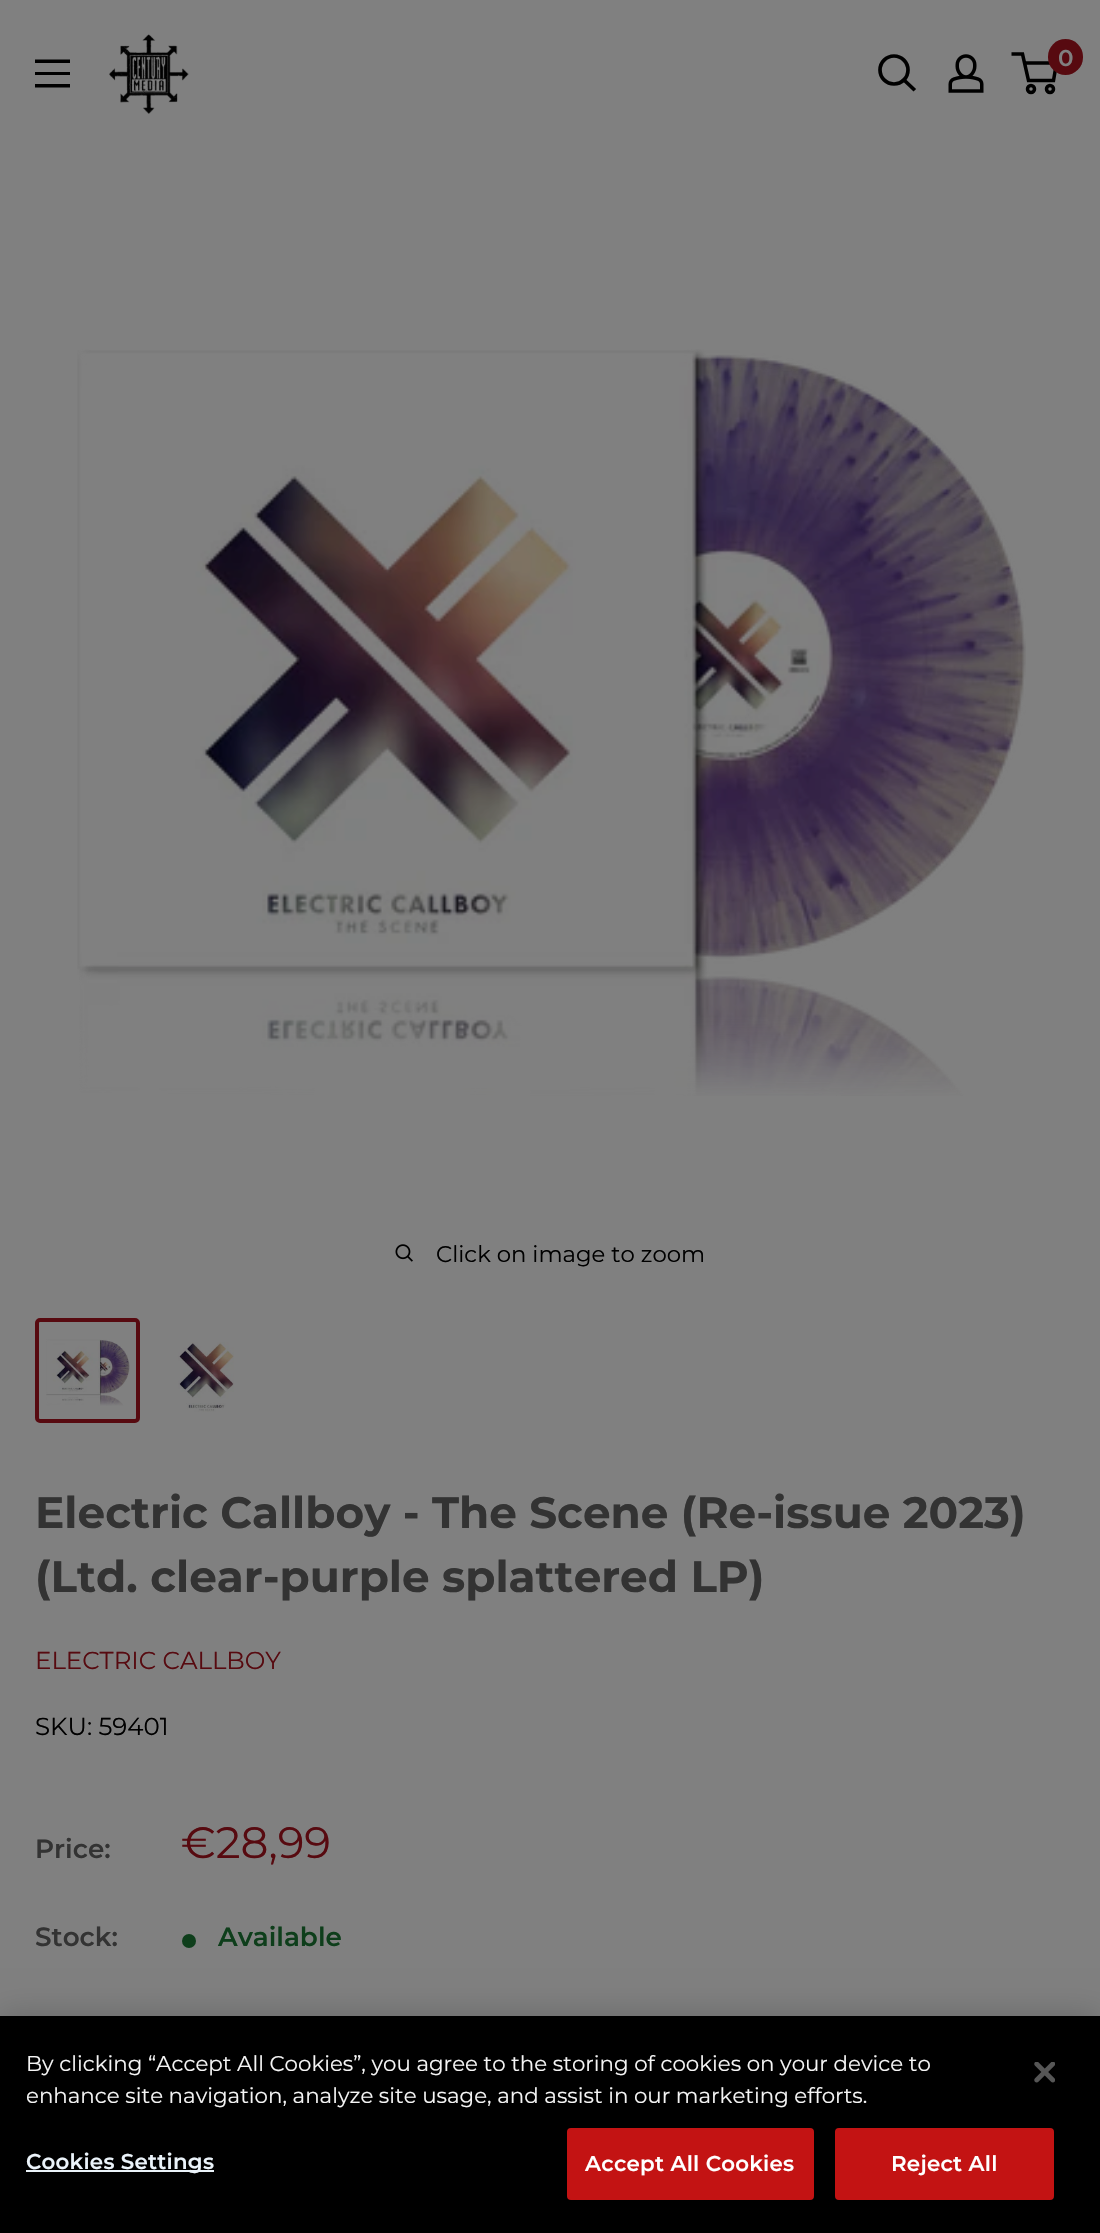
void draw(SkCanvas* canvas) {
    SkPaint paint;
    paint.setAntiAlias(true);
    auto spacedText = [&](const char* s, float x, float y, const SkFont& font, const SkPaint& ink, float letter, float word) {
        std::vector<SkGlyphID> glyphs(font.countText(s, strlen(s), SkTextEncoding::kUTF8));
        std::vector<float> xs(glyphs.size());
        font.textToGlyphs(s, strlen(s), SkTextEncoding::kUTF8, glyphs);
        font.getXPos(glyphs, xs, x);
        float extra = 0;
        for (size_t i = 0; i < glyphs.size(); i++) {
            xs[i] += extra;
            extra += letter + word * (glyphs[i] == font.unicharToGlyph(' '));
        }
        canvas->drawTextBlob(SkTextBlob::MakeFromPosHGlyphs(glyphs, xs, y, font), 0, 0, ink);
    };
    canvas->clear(0xFF808080);
    paint.setColor(0xFF000000);
    canvas->drawPath(SkPathBuilder(SkPathFillType::kEvenOdd).moveTo(35, 84).lineTo(70, 84).lineTo(70, 87.5f).lineTo(35, 87.5f).close().moveTo(35, 59.5f).lineTo(70, 59.5f).lineTo(70, 63).lineTo(35, 63).close().moveTo(35, 72).lineTo(70, 72).lineTo(70, 75).lineTo(35, 75).close().detach(), paint);
    canvas->drawImageRect(SkImages::DeferredFromEncodedData(SkData::MakeFromFileName("img1.png")), SkRect::MakeXYWH(109, 34, 80, 80), SkSamplingOptions());
    paint.setStyle(SkPaint::kStroke_Style);
    paint.setStrokeWidth(3.7f);
    paint.setStrokeCap(SkPaint::kSquare_Cap);
    canvas->drawPath(SkPathBuilder().moveTo(913.5f, 89).lineTo(904, 80).detach(), paint);
    paint.setStrokeCap(SkPaint::kButt_Cap);
    canvas->drawCircle(894, 70, 14, paint);
    canvas->drawImageRect(SkImages::DeferredFromEncodedData(SkData::MakeFromFileName("img2.png")), SkRect::MakeXYWH(948, 54, 36, 39), SkSamplingOptions());
    paint.setStrokeWidth(3.5f);
    canvas->drawCircle(1031, 89, 3.5f, paint);
    canvas->drawCircle(1050, 89, 3.5f, paint);
    canvas->drawPath(SkPathBuilder().moveTo(1024.5f, 63).lineTo(1056.5f, 63).lineTo(1053.5f, 80.5f).lineTo(1028.5f, 80.5f).lineTo(1022.5f, 54).lineTo(1011.5f, 54).detach(), paint);
    paint.setStyle(SkPaint::kFill_Style);
    paint.setColor(0xFF570A10);
    canvas->drawRoundRect(SkRect::MakeXYWH(1048, 39, 35, 36), 17.5f, 17.5f, paint);
    SkFont font1(fontMgr->matchFamilyStyle("Montserrat", SkFontStyle(600, SkFontStyle::kNormal_Width, SkFontStyle::kUpright_Slant)), 23);
    font1.setSubpixel(true);
    paint.setColor(0xFF808080);
    canvas->drawString("0", 1058, 66, font1, paint);
    canvas->drawImageRect(SkImages::DeferredFromEncodedData(SkData::MakeFromFileName("img3.png")), SkRect::MakeXYWH(77, 349, 949, 747), SkSamplingOptions());
    canvas->drawImageRect(SkImages::DeferredFromEncodedData(SkData::MakeFromFileName("img4.png")), SkRect::MakeXYWH(395, 1244, 18, 18), SkSamplingOptions());
    SkFont font2(fontMgr->matchFamilyStyle("Montserrat", SkFontStyle::Normal()), 22.75f);
    font2.setSubpixel(true);
    paint.setColor(0xFF000000);
    canvas->drawString("Click on image to zoom", 436, 1262, font2, paint);
    paint.setStyle(SkPaint::kStroke_Style);
    paint.setStrokeWidth(4);
    paint.setColor(0xFF570A10);
    canvas->drawRoundRect(SkRect::MakeXYWH(37, 1320, 101, 101), 3, 3, paint);
    canvas->drawImageRect(SkImages::DeferredFromEncodedData(SkData::MakeFromFileName("img5.png")), SkRect::MakeXYWH(46, 1339, 84, 67), SkSamplingOptions());
    canvas->drawImageRect(SkImages::DeferredFromEncodedData(SkData::MakeFromFileName("img6.png")), SkRect::MakeXYWH(178, 1342, 56, 70), SkSamplingOptions());
    SkFont font3(fontMgr->matchFamilyStyle("Montserrat", SkFontStyle::Bold()), 43.75f);
    font3.setSubpixel(true);
    paint.setStyle(SkPaint::kFill_Style);
    paint.setColor(0xFF333333);
    canvas->drawString("Electric Callboy - The Scene (Re-issue 2023)", 35, 1528, font3, paint);
    canvas->drawString("(Ltd. clear-purple splattered LP)", 35, 1592, font3, paint);
    SkFont font4(fontMgr->matchFamilyStyle("Montserrat", SkFontStyle::Normal()), 24.5f);
    font4.setSubpixel(true);
    paint.setColor(0xFF570A10);
    canvas->drawString("ELECTRIC CALLBOY", 35, 1669, font4, paint);
    paint.setColor(0xFF000000);
    canvas->drawString("SKU: 59401", 35, 1735, font4, paint);
    SkFont font5(fontMgr->matchFamilyStyle("Montserrat", SkFontStyle(600, SkFontStyle::kNormal_Width, SkFontStyle::kUpright_Slant)), 26.25f);
    font5.setSubpixel(true);
    paint.setColor(0xFF333333);
    canvas->drawString("Price:", 35, 1858, font5, paint);
    SkFont font6(fontMgr->matchFamilyStyle("Montserrat", SkFontStyle::Normal()), 43.75f);
    font6.setSubpixel(true);
    paint.setColor(0xFF570A10);
    canvas->drawString("€28,99", 181, 1858, font6, paint);
    paint.setColor(0xFF333333);
    canvas->drawString("Stock:", 35, 1946, font5, paint);
    paint.setColor(0xFF0E3E1B);
    canvas->drawCircle(189, 1941, 7, paint);
    canvas->drawString("Available", 218, 1946, font5, paint);
    paint.setColor(0x33000000);
    paint.setMaskFilter(SkMaskFilter::MakeBlur(kNormal_SkBlurStyle, 16));
    canvas->drawRect(SkRect::MakeXYWH(0, 2016, 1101, 217), paint);
    paint.setMaskFilter(nullptr);
    paint.setColor(0xFF000000);
    canvas->drawRect(SkRect::MakeXYWH(0, 2016, 1100, 217), paint);
    SkFont font7(fontMgr->matchFamilyStyle("Montserrat", SkFontStyle::Normal()), 21.35f);
    font7.setSubpixel(true);
    paint.setColor(0xFFF5F5F5);
    canvas->drawString("By clicking “Accept All Cookies”, you agree to the storing of cookies on your device to", 26, 2071, font7, paint);
    canvas->drawString("enhance site navigation, analyze site usage, and assist in our marketing efforts.", 26, 2103, font7, paint);
    paint.setColor(0xFFEBF3FA);
    canvas->drawRect(SkRect::MakeXYWH(26, 2170, 188, 2), paint);
    SkFont font8(fontMgr->matchFamilyStyle("Montserrat", SkFontStyle(600, SkFontStyle::kNormal_Width, SkFontStyle::kUpright_Slant)), 21.35f);
    font8.setSubpixel(true);
    spacedText("Cookies Settings", 26, 2169, font8, paint, 0.25f, 0);
    paint.setColor(0xFFC31313);
    canvas->drawRoundRect(SkRect::MakeXYWH(568, 2129, 245, 70), 3, 3, paint);
    paint.setStyle(SkPaint::kStroke_Style);
    paint.setStrokeWidth(2);
    canvas->drawRoundRect(SkRect::MakeXYWH(568, 2129, 245, 70), 3, 3, paint);
    paint.setStyle(SkPaint::kFill_Style);
    paint.setColor(0xFFFFFFFF);
    spacedText("Accept All Cookies", 585, 2171, font8, paint, 0.25f, 0);
    paint.setColor(0xFFC31313);
    canvas->drawRoundRect(SkRect::MakeXYWH(836, 2129, 217, 70), 3, 3, paint);
    paint.setStyle(SkPaint::kStroke_Style);
    canvas->drawRoundRect(SkRect::MakeXYWH(836, 2129, 217, 70), 3, 3, paint);
    paint.setStyle(SkPaint::kFill_Style);
    paint.setColor(0xFFFFFFFF);
    spacedText("Reject All", 891, 2171, font8, paint, 0.25f, 0);
    canvas->drawImageRect(SkImages::DeferredFromEncodedData(SkData::MakeFromFileName("img7.png")), SkRect::MakeXYWH(1034, 2062, 21, 21), SkSamplingOptions());
}
